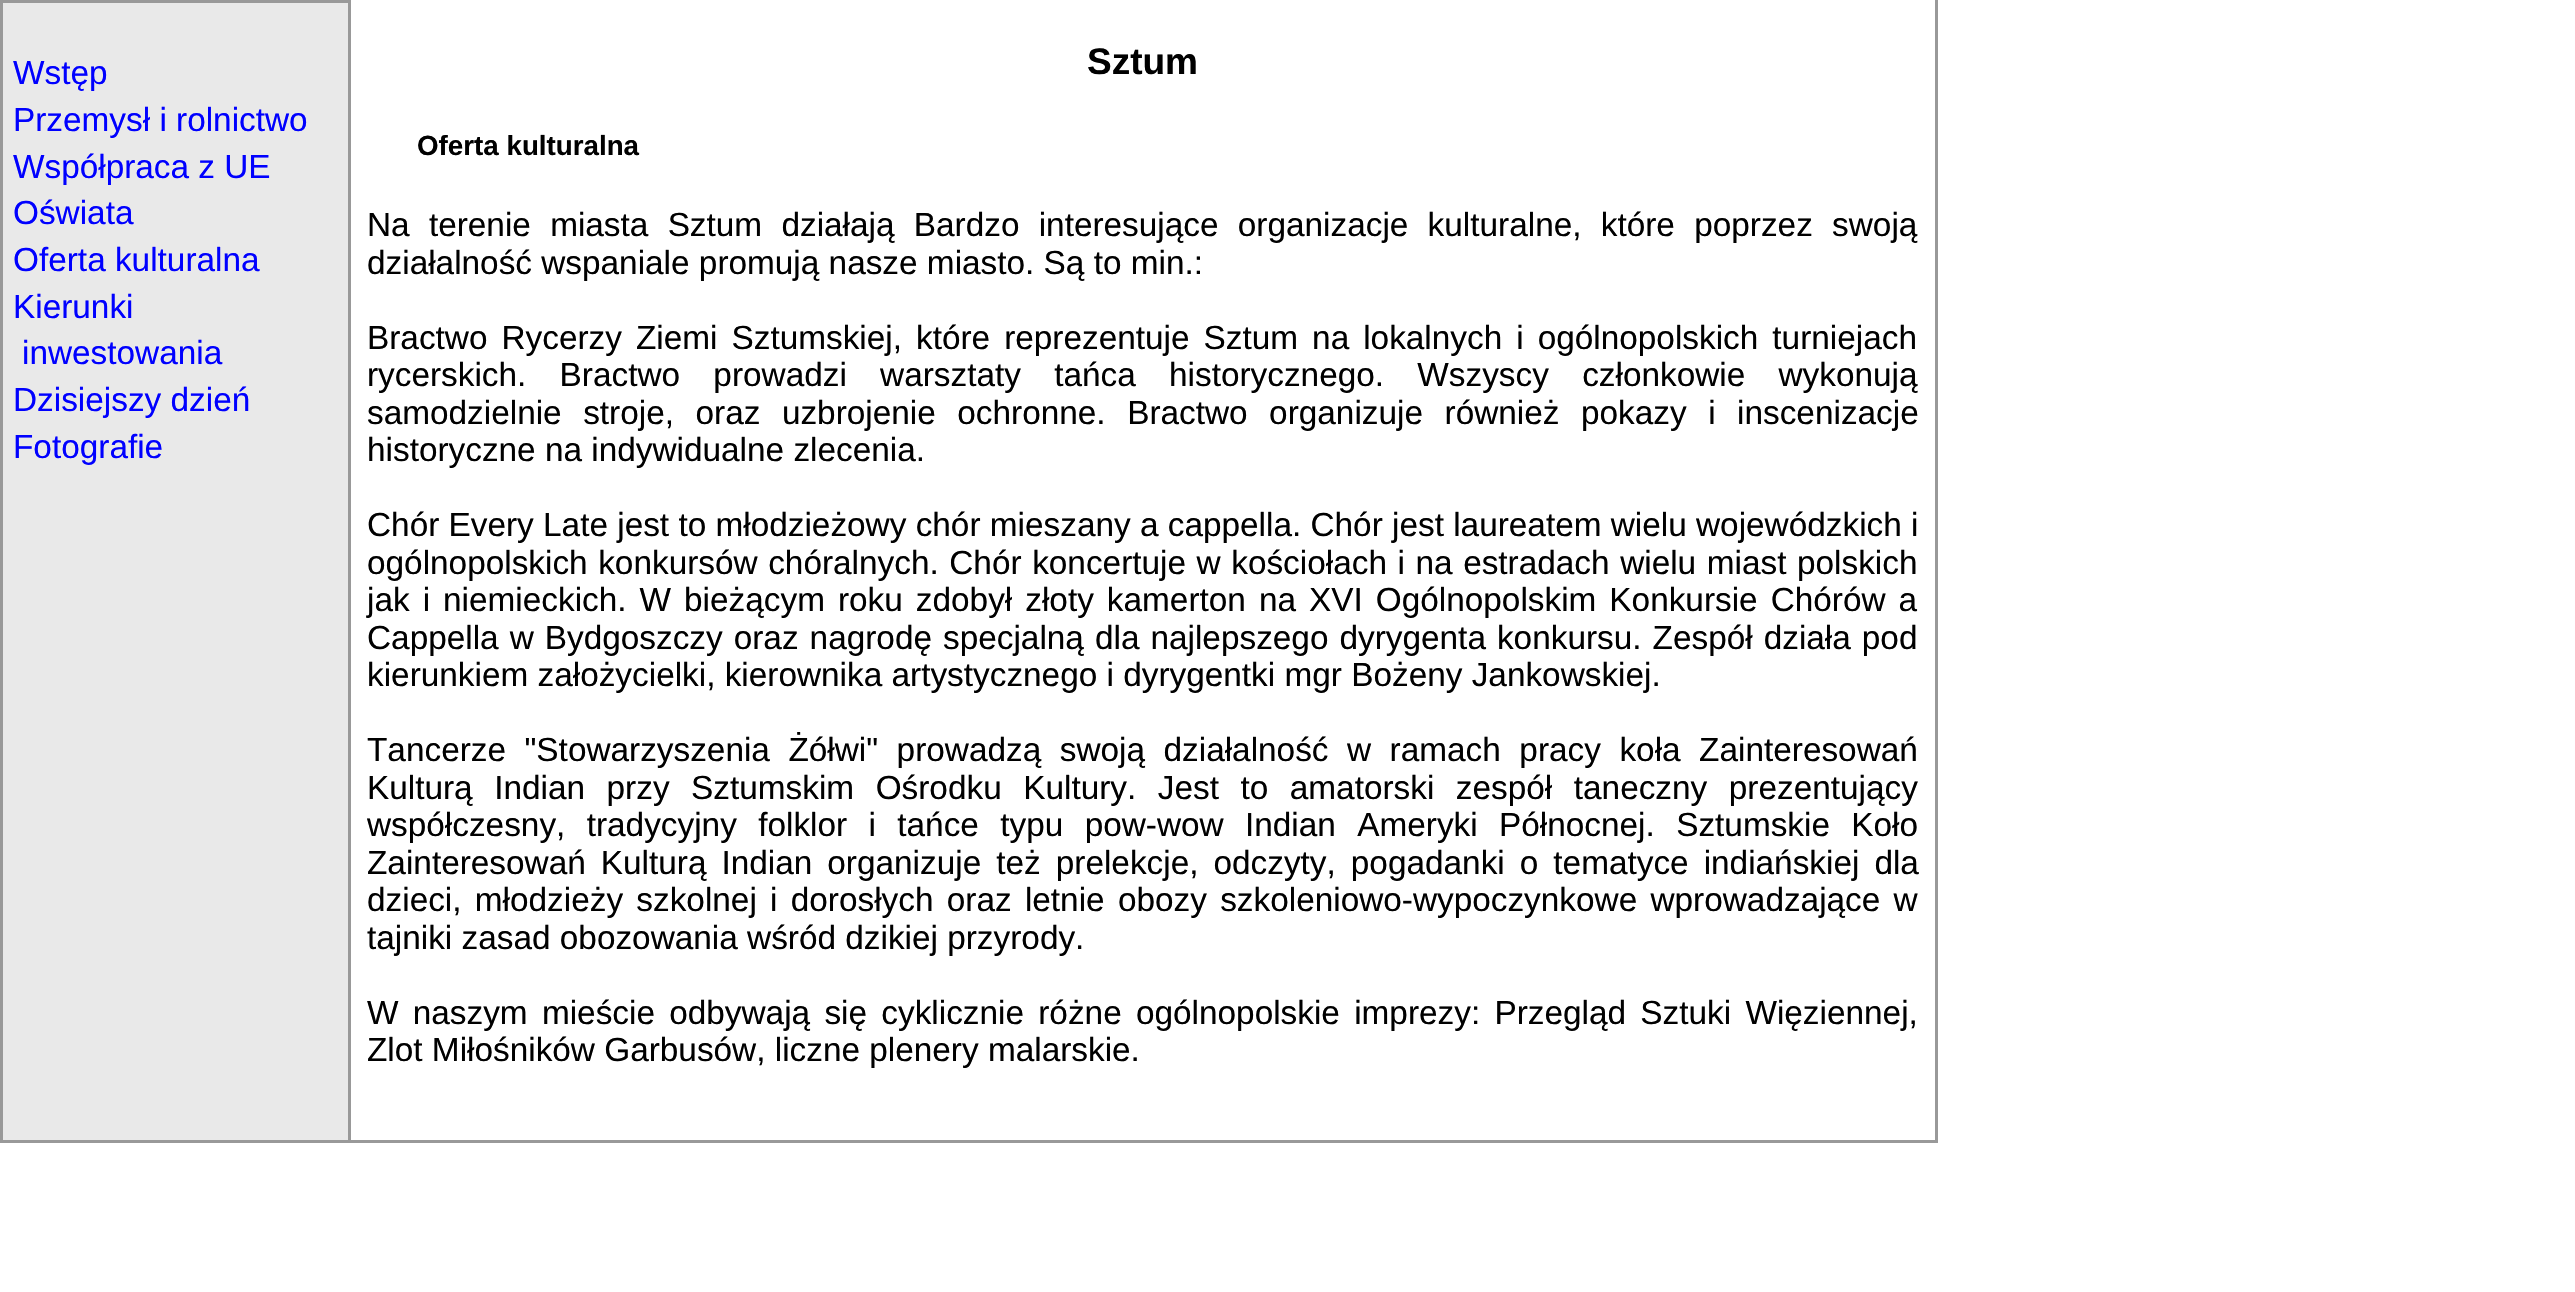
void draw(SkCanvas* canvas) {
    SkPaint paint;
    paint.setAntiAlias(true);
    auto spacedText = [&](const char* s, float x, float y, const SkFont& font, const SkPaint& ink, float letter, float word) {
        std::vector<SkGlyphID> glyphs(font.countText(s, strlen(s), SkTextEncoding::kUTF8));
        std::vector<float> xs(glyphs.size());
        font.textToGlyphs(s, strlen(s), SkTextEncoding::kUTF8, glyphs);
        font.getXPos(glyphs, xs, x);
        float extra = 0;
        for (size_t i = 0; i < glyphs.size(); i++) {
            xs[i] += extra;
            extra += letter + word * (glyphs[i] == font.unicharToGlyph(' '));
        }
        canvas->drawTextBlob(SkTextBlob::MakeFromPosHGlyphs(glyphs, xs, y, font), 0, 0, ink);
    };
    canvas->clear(0xFFFFFFFF);
    paint.setColor(0xFFE9E9E9);
    canvas->drawRect(SkRect::MakeXYWH(3, 3, 345, 1137), paint);
    paint.setColor(0xFF999999);
    canvas->drawRect(SkRect::MakeXYWH(1935, 0, 3, 1143), paint);
    canvas->drawRect(SkRect::MakeXYWH(348, 1140, 1590, 3), paint);
    canvas->drawRect(SkRect::MakeXYWH(348, 0, 3, 1143), paint);
    canvas->drawRect(SkRect::MakeXYWH(0, 0, 350, 3), paint);
    canvas->drawRect(SkRect::MakeXYWH(0, 1140, 350, 3), paint);
    canvas->drawRect(SkRect::MakeXYWH(0, 0, 3, 1143), paint);
    SkFont font1(fontMgr->matchFamilyStyle("Liberation Sans", SkFontStyle::Normal()), 33.35f);
    font1.setSubpixel(true);
    paint.setColor(0xFF0000FF);
    canvas->drawString("Wstęp", 13, 84, font1, paint);
    canvas->drawString("Przemysł i rolnictwo", 13, 131, font1, paint);
    canvas->drawString("Współpraca z UE", 13, 178, font1, paint);
    canvas->drawString("Oświata", 13, 224, font1, paint);
    canvas->drawString("Oferta kulturalna", 13, 271, font1, paint);
    canvas->drawString("Kierunki", 13, 318, font1, paint);
    canvas->drawString("inwestowania", 22, 364, font1, paint);
    canvas->drawString("Dzisiejszy dzień", 13, 411, font1, paint);
    canvas->drawString("Fotografie", 13, 458, font1, paint);
    SkFont font2(fontMgr->matchFamilyStyle("Liberation Sans", SkFontStyle::Bold()), 37);
    font2.setSubpixel(true);
    paint.setColor(0xFF000000);
    canvas->drawString("Sztum", 1087, 74, font2, paint);
    SkFont font3(fontMgr->matchFamilyStyle("Liberation Sans", SkFontStyle::Bold()), 27.75f);
    font3.setSubpixel(true);
    canvas->drawString("Oferta kulturalna", 417, 155, font3, paint);
    spacedText("Na terenie miasta Sztum działają Bardzo interesujące organizacje kulturalne, które poprzez swoją", 367, 236, font1, paint, 0, 10);
    canvas->drawString("działalność wspaniale promują nasze miasto. Są to min.:", 367, 274, font1, paint);
    spacedText("Bractwo Rycerzy Ziemi Sztumskiej, które reprezentuje Sztum na lokalnych i ogólnopolskich turniejach", 367, 349, font1, paint, 0, 4.75f);
    spacedText("rycerskich. Bractwo prowadzi warsztaty tańca historycznego. Wszyscy członkowie wykonują", 367, 386, font1, paint, 0, 24);
    spacedText("samodzielnie stroje, oraz uzbrojenie ochronne. Bractwo organizuje również pokazy i inscenizacje", 367, 424, font1, paint, 0, 12.25f);
    canvas->drawString("historyczne na indywidualne zlecenia.", 367, 461, font1, paint);
    canvas->drawString("Chór Every Late jest to młodzieżowy chór mieszany a cappella. Chór jest laureatem wielu wojewódzkich i", 367, 536, font1, paint);
    spacedText("ogólnopolskich konkursów chóralnych. Chór koncertuje w kościołach i na estradach wielu miast polskich", 367, 574, font1, paint, 0, 1.3f);
    spacedText("jak i niemieckich. W bieżącym roku zdobył złoty kamerton na XVI Ogólnopolskim Konkursie Chórów a", 367, 611, font1, paint, 0, 3.75f);
    spacedText("Cappella w Bydgoszczy oraz nagrodę specjalną dla najlepszego dyrygenta konkursu. Zespół działa pod", 367, 649, font1, paint, 0, 1.75f);
    canvas->drawString("kierunkiem założycielki, kierownika artystycznego i dyrygentki mgr Bożeny Jankowskiej.", 367, 686, font1, paint);
    spacedText("Tancerze \"Stowarzyszenia Żółwi\" prowadzą swoją działalność w ramach pracy koła Zainteresowań", 367, 761, font1, paint, 0, 9.25f);
    spacedText("Kulturą Indian przy Sztumskim Ośrodku Kultury. Jest to amatorski zespół taneczny prezentujący", 367, 799, font1, paint, 0, 12.25f);
    spacedText("współczesny, tradycyjny folklor i tańce typu pow-wow Indian Ameryki Północnej. Sztumskie Koło", 367, 836, font1, paint, 0, 12.1f);
    spacedText("Zainteresowań Kulturą Indian organizuje też prelekcje, odczyty, pogadanki o tematyce indiańskiej dla", 367, 874, font1, paint, 0, 5.75f);
    spacedText("dzieci, młodzieży szkolnej i dorosłych oraz letnie obozy szkoleniowo-wypoczynkowe wprowadzające w", 367, 911, font1, paint, 0, 4);
    canvas->drawString("tajniki zasad obozowania wśród dzikiej przyrody.", 367, 949, font1, paint);
    spacedText("W naszym mieście odbywają się cyklicznie różne ogólnopolskie imprezy: Przegląd Sztuki Więziennej,", 367, 1024, font1, paint, 0, 5);
    canvas->drawString("Zlot Miłośników Garbusów, liczne plenery malarskie.", 367, 1061, font1, paint);
}
